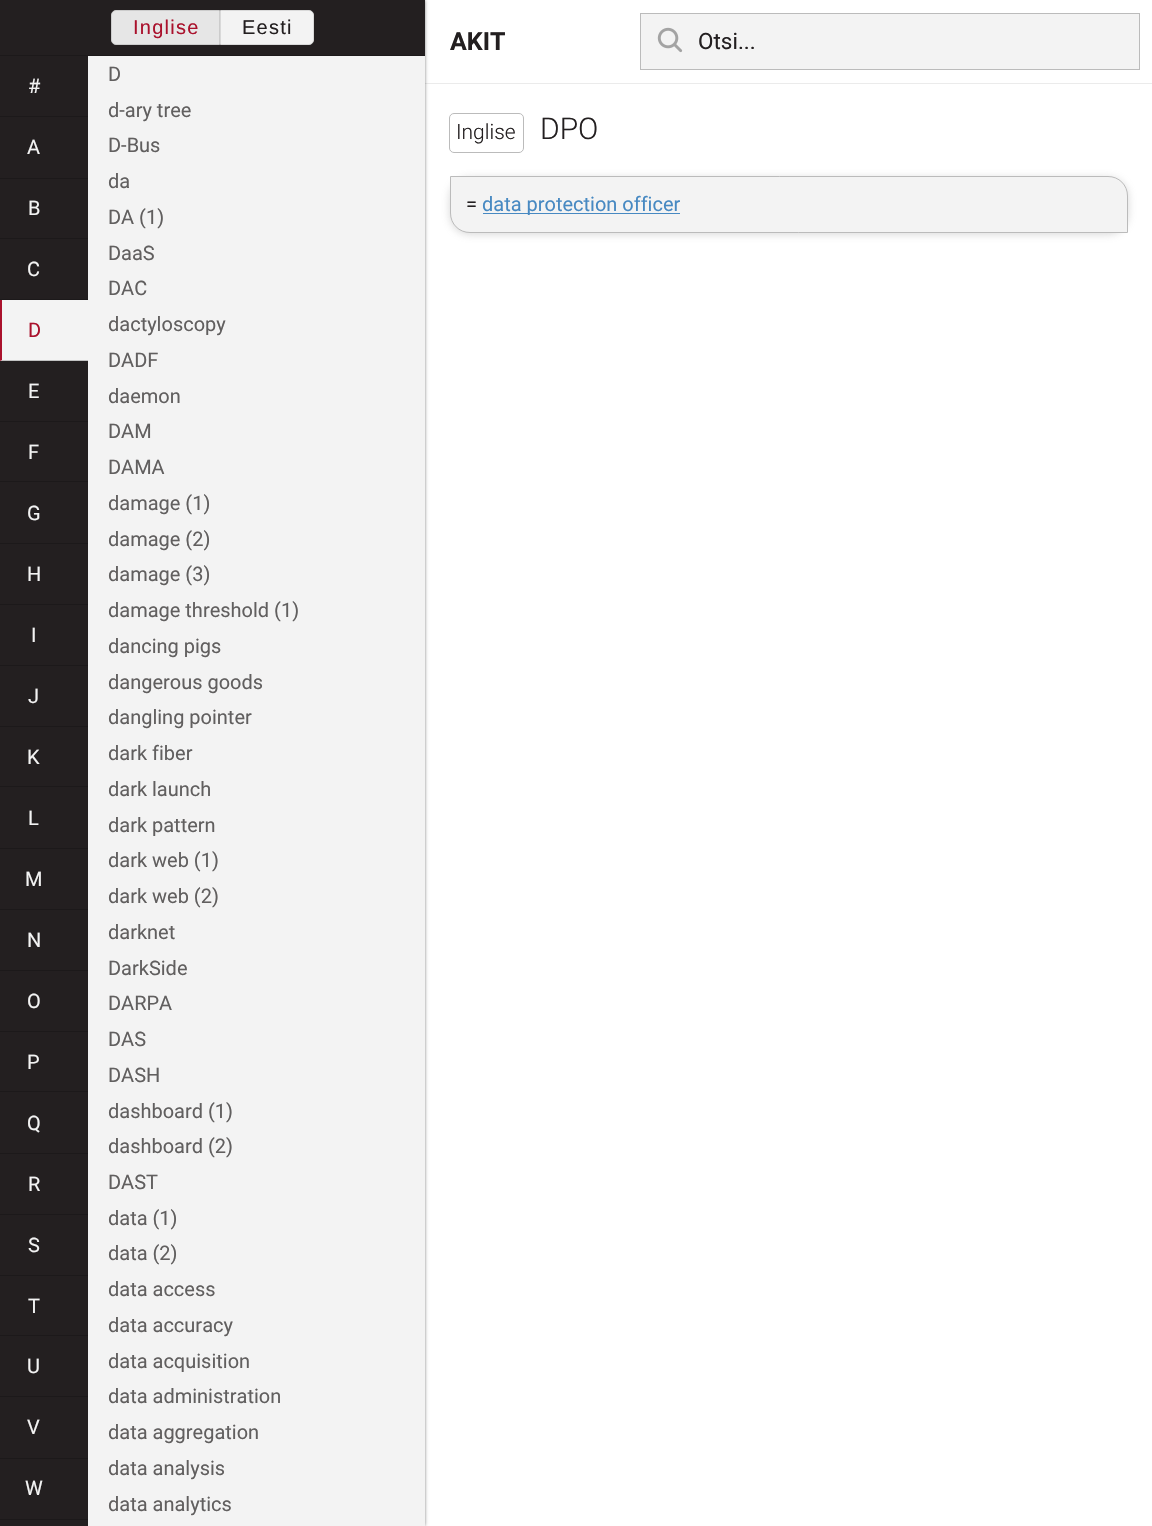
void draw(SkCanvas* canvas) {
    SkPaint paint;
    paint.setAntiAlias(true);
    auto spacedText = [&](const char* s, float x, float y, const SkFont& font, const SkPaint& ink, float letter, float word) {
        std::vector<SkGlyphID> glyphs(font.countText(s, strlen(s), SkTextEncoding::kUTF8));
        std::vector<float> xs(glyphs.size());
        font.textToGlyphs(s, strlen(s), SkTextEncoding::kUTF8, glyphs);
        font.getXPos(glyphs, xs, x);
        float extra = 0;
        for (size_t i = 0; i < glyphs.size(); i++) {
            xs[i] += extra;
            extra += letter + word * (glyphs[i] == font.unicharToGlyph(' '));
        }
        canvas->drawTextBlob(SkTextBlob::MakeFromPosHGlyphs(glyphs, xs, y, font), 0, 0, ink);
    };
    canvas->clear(0xFFFFFFFF);
    paint.setColor(0xFFEBEBEB);
    canvas->drawRect(SkRect::MakeXYWH(425, 83, 727, 1), paint);
    paint.setColor(0xCC000000);
    paint.setMaskFilter(SkMaskFilter::MakeBlur(kNormal_SkBlurStyle, 2));
    canvas->drawRect(SkRect::MakeXYWH(-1, 0, 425, 1526), paint);
    paint.setMaskFilter(nullptr);
    paint.setColor(0xFF231F20);
    canvas->drawRect(SkRect::MakeXYWH(0, 0, 425, 55), paint);
    paint.setColor(0xFF1C191A);
    canvas->drawRect(SkRect::MakeXYWH(0, 55, 425, 1), paint);
    paint.setColor(0xFFE6E6E6);
    canvas->drawPath(SkPathBuilder().moveTo(116, 10.5f).lineTo(219.5f, 10.5f).lineTo(219.5f, 44.5f).lineTo(116, 44.5f).cubicTo(113.5f, 44.5f, 111.5f, 42.5f, 111.5f, 40).lineTo(111.5f, 15).cubicTo(111.5f, 12.5f, 113.5f, 10.5f, 116, 10.5f).close().detach(), paint);
    paint.setStyle(SkPaint::kStroke_Style);
    paint.setStrokeWidth(1);
    paint.setColor(0xFFCCCCCC);
    canvas->drawPath(SkPathBuilder().moveTo(116, 10.5f).lineTo(219.5f, 10.5f).lineTo(219.5f, 44.5f).lineTo(116, 44.5f).cubicTo(113.5f, 44.5f, 111.5f, 42.5f, 111.5f, 40).lineTo(111.5f, 15).cubicTo(111.5f, 12.5f, 113.5f, 10.5f, 116, 10.5f).close().detach(), paint);
    SkFont font1(fontMgr->matchFamilyStyle("Liberation Sans", SkFontStyle::Normal()), 20);
    font1.setSubpixel(true);
    paint.setStyle(SkPaint::kFill_Style);
    paint.setColor(0xFFAA112C);
    spacedText("Inglise", 133, 34, font1, paint, 1.25f, 0);
    paint.setColor(0xFFF3F3F3);
    canvas->drawPath(SkPathBuilder().moveTo(220.5f, 10.5f).lineTo(309, 10.5f).cubicTo(311.5f, 10.5f, 313.5f, 12.5f, 313.5f, 15).lineTo(313.5f, 40).cubicTo(313.5f, 42.5f, 311.5f, 44.5f, 309, 44.5f).lineTo(220.5f, 44.5f).close().detach(), paint);
    paint.setStyle(SkPaint::kStroke_Style);
    paint.setColor(0xFFD9D9D9);
    canvas->drawPath(SkPathBuilder().moveTo(220.5f, 10.5f).lineTo(309, 10.5f).cubicTo(311.5f, 10.5f, 313.5f, 12.5f, 313.5f, 15).lineTo(313.5f, 40).cubicTo(313.5f, 42.5f, 311.5f, 44.5f, 309, 44.5f).lineTo(220.5f, 44.5f).close().detach(), paint);
    paint.setStyle(SkPaint::kFill_Style);
    paint.setColor(0xFF231F20);
    spacedText("Eesti", 242, 34, font1, paint, 1.25f, 0);
    canvas->drawRect(SkRect::MakeXYWH(0, 56, 88, 1470), paint);
    paint.setColor(0xFF1C191A);
    canvas->drawRect(SkRect::MakeXYWH(0, 116, 88, 1), paint);
    SkFont font2(fontMgr->matchFamilyStyle("Roboto", SkFontStyle::Normal()), 20);
    font2.setSubpixel(true);
    paint.setColor(0xFFF3F3F3);
    canvas->drawString("#", 28, 93, font2, paint);
    paint.setColor(0xFF1C191A);
    canvas->drawRect(SkRect::MakeXYWH(0, 178, 88, 1), paint);
    paint.setColor(0xFFF3F3F3);
    canvas->drawString("A", 27, 154, font2, paint);
    paint.setColor(0xFF1C191A);
    canvas->drawRect(SkRect::MakeXYWH(0, 238, 88, 1), paint);
    paint.setColor(0xFFF3F3F3);
    canvas->drawString("B", 28, 215, font2, paint);
    paint.setColor(0xFF1C191A);
    canvas->drawRect(SkRect::MakeXYWH(0, 299, 88, 1), paint);
    paint.setColor(0xFFF3F3F3);
    canvas->drawString("C", 27, 276, font2, paint);
    canvas->drawRect(SkRect::MakeXYWH(0, 300, 88, 61), paint);
    paint.setColor(0xFFC2C2C2);
    canvas->drawPath(SkPathBuilder().moveTo(88, 361).lineTo(0, 361).lineTo(2, 360).lineTo(88, 360).close().detach(), paint);
    paint.setColor(0xFFAA112C);
    canvas->drawPath(SkPathBuilder().moveTo(0, 361).lineTo(0, 300).lineTo(2, 300).lineTo(2, 360).close().detach(), paint);
    canvas->drawString("D", 28, 337, font2, paint);
    paint.setColor(0xFF1C191A);
    canvas->drawRect(SkRect::MakeXYWH(0, 421, 88, 1), paint);
    paint.setColor(0xFFF3F3F3);
    canvas->drawString("E", 28, 398, font2, paint);
    paint.setColor(0xFF1C191A);
    canvas->drawRect(SkRect::MakeXYWH(0, 481, 88, 1), paint);
    paint.setColor(0xFFF3F3F3);
    canvas->drawString("F", 28, 459, font2, paint);
    paint.setColor(0xFF1C191A);
    canvas->drawRect(SkRect::MakeXYWH(0, 543, 88, 1), paint);
    paint.setColor(0xFFF3F3F3);
    canvas->drawString("G", 27, 520, font2, paint);
    paint.setColor(0xFF1C191A);
    canvas->drawRect(SkRect::MakeXYWH(0, 604, 88, 1), paint);
    paint.setColor(0xFFF3F3F3);
    canvas->drawString("H", 27, 581, font2, paint);
    paint.setColor(0xFF1C191A);
    canvas->drawRect(SkRect::MakeXYWH(0, 665, 88, 1), paint);
    paint.setColor(0xFFF3F3F3);
    canvas->drawString("I", 31, 642, font2, paint);
    paint.setColor(0xFF1C191A);
    canvas->drawRect(SkRect::MakeXYWH(0, 726, 88, 1), paint);
    paint.setColor(0xFFF3F3F3);
    canvas->drawString("J", 28, 703, font2, paint);
    paint.setColor(0xFF1C191A);
    canvas->drawRect(SkRect::MakeXYWH(0, 786, 88, 1), paint);
    paint.setColor(0xFFF3F3F3);
    canvas->drawString("K", 27, 764, font2, paint);
    paint.setColor(0xFF1C191A);
    canvas->drawRect(SkRect::MakeXYWH(0, 848, 88, 1), paint);
    paint.setColor(0xFFF3F3F3);
    canvas->drawString("L", 28, 825, font2, paint);
    paint.setColor(0xFF1C191A);
    canvas->drawRect(SkRect::MakeXYWH(0, 909, 88, 1), paint);
    paint.setColor(0xFFF3F3F3);
    canvas->drawString("M", 25, 886, font2, paint);
    paint.setColor(0xFF1C191A);
    canvas->drawRect(SkRect::MakeXYWH(0, 970, 88, 1), paint);
    paint.setColor(0xFFF3F3F3);
    canvas->drawString("N", 27, 947, font2, paint);
    paint.setColor(0xFF1C191A);
    canvas->drawRect(SkRect::MakeXYWH(0, 1031, 88, 1), paint);
    paint.setColor(0xFFF3F3F3);
    canvas->drawString("O", 27, 1008, font2, paint);
    paint.setColor(0xFF1C191A);
    canvas->drawRect(SkRect::MakeXYWH(0, 1091, 88, 1), paint);
    paint.setColor(0xFFF3F3F3);
    canvas->drawString("P", 27, 1069, font2, paint);
    paint.setColor(0xFF1C191A);
    canvas->drawRect(SkRect::MakeXYWH(0, 1153, 88, 1), paint);
    paint.setColor(0xFFF3F3F3);
    canvas->drawString("Q", 27, 1130, font2, paint);
    paint.setColor(0xFF1C191A);
    canvas->drawRect(SkRect::MakeXYWH(0, 1214, 88, 1), paint);
    paint.setColor(0xFFF3F3F3);
    canvas->drawString("R", 28, 1191, font2, paint);
    paint.setColor(0xFF1C191A);
    canvas->drawRect(SkRect::MakeXYWH(0, 1275, 88, 1), paint);
    paint.setColor(0xFFF3F3F3);
    canvas->drawString("S", 28, 1252, font2, paint);
    paint.setColor(0xFF1C191A);
    canvas->drawRect(SkRect::MakeXYWH(0, 1335, 88, 1), paint);
    paint.setColor(0xFFF3F3F3);
    canvas->drawString("T", 28, 1313, font2, paint);
    paint.setColor(0xFF1C191A);
    canvas->drawRect(SkRect::MakeXYWH(0, 1396, 88, 1), paint);
    paint.setColor(0xFFF3F3F3);
    canvas->drawString("U", 27, 1373, font2, paint);
    paint.setColor(0xFF1C191A);
    canvas->drawRect(SkRect::MakeXYWH(0, 1458, 88, 1), paint);
    paint.setColor(0xFFF3F3F3);
    canvas->drawString("V", 27, 1434, font2, paint);
    paint.setColor(0xFF1C191A);
    canvas->drawRect(SkRect::MakeXYWH(0, 1519, 88, 1), paint);
    paint.setColor(0xFFF3F3F3);
    canvas->drawString("W", 25, 1495, font2, paint);
    canvas->drawRect(SkRect::MakeXYWH(88, 56, 337, 1470), paint);
    paint.setColor(0xFF615F5F);
    canvas->drawString("D", 108, 81, font2, paint);
    canvas->drawString("d-ary tree", 108, 117, font2, paint);
    canvas->drawString("D-Bus", 108, 152, font2, paint);
    canvas->drawString("da", 108, 188, font2, paint);
    canvas->drawString("DA (1)", 108, 224, font2, paint);
    canvas->drawString("DaaS", 108, 260, font2, paint);
    canvas->drawString("DAC", 108, 295, font2, paint);
    canvas->drawString("dactyloscopy", 108, 331, font2, paint);
    canvas->drawString("DADF", 108, 367, font2, paint);
    canvas->drawString("daemon", 108, 403, font2, paint);
    canvas->drawString("DAM", 108, 438, font2, paint);
    canvas->drawString("DAMA", 108, 474, font2, paint);
    canvas->drawString("damage (1)", 108, 510, font2, paint);
    canvas->drawString("damage (2)", 108, 546, font2, paint);
    canvas->drawString("damage (3)", 108, 581, font2, paint);
    canvas->drawString("damage threshold (1)", 108, 617, font2, paint);
    canvas->drawString("dancing pigs", 108, 653, font2, paint);
    canvas->drawString("dangerous goods", 108, 689, font2, paint);
    canvas->drawString("dangling pointer", 108, 724, font2, paint);
    canvas->drawString("dark fiber", 108, 760, font2, paint);
    canvas->drawString("dark launch", 108, 796, font2, paint);
    canvas->drawString("dark pattern", 108, 832, font2, paint);
    canvas->drawString("dark web (1)", 108, 867, font2, paint);
    canvas->drawString("dark web (2)", 108, 903, font2, paint);
    canvas->drawString("darknet", 108, 939, font2, paint);
    canvas->drawString("DarkSide", 108, 975, font2, paint);
    canvas->drawString("DARPA", 108, 1010, font2, paint);
    canvas->drawString("DAS", 108, 1046, font2, paint);
    canvas->drawString("DASH", 108, 1082, font2, paint);
    canvas->drawString("dashboard (1)", 108, 1118, font2, paint);
    canvas->drawString("dashboard (2)", 108, 1153, font2, paint);
    canvas->drawString("DAST", 108, 1189, font2, paint);
    canvas->drawString("data (1)", 108, 1225, font2, paint);
    canvas->drawString("data (2)", 108, 1260, font2, paint);
    canvas->drawString("data access", 108, 1296, font2, paint);
    canvas->drawString("data accuracy", 108, 1332, font2, paint);
    canvas->drawString("data acquisition", 108, 1368, font2, paint);
    canvas->drawString("data administration", 108, 1403, font2, paint);
    canvas->drawString("data aggregation", 108, 1439, font2, paint);
    canvas->drawString("data analysis", 108, 1475, font2, paint);
    canvas->drawString("data analytics", 108, 1511, font2, paint);
    SkFont font3(fontMgr->matchFamilyStyle("Roboto", SkFontStyle::Bold()), 25);
    font3.setSubpixel(true);
    paint.setColor(0xFF231F20);
    canvas->drawString("AKIT", 450, 50, font3, paint);
    paint.setColor(0xFFF3F3F3);
    canvas->drawRect(SkRect::MakeXYWH(640.5f, 13.5f, 499, 56), paint);
    paint.setStyle(SkPaint::kStroke_Style);
    paint.setColor(0xFFBBBBBB);
    canvas->drawRect(SkRect::MakeXYWH(640.5f, 13.5f, 499, 56), paint);
    canvas->drawImageRect(SkImages::DeferredFromEncodedData(SkData::MakeFromFileName("img1.png")), SkRect::MakeXYWH(657, 27, 26, 26), SkSamplingOptions());
    SkFont font4(fontMgr->matchFamilyStyle("Roboto", SkFontStyle::Normal()), 22.5f);
    font4.setSubpixel(true);
    paint.setStyle(SkPaint::kFill_Style);
    paint.setColor(0xFF231F20);
    canvas->drawString("Otsi...", 698, 49, font4, paint);
    SkFont font5(fontMgr->matchFamilyStyle("Roboto", SkFontStyle(300, SkFontStyle::kNormal_Width, SkFontStyle::kUpright_Slant)), 21);
    font5.setSubpixel(true);
    canvas->drawString("Inglise", 456, 139, font5, paint);
    paint.setStyle(SkPaint::kStroke_Style);
    paint.setColor(0xFFBBBBBB);
    canvas->drawRoundRect(SkRect::MakeXYWH(449.5f, 113.5f, 74, 39), 4.5f, 4.5f, paint);
    SkFont font6(fontMgr->matchFamilyStyle("Roboto", SkFontStyle(300, SkFontStyle::kNormal_Width, SkFontStyle::kUpright_Slant)), 30);
    font6.setSubpixel(true);
    paint.setStyle(SkPaint::kFill_Style);
    paint.setColor(0xFF231F20);
    canvas->drawString("DPO", 540, 139, font6, paint);
    paint.setColor(0xCCCCCCCC);
    paint.setMaskFilter(SkMaskFilter::MakeBlur(kNormal_SkBlurStyle, 4.5f));
    canvas->drawRoundRect(SkRect::MakeXYWH(450, 178, 678, 56), 20, 20, paint);
    paint.setMaskFilter(nullptr);
    paint.setColor(0xFFF3F3F3);
    canvas->drawPath(SkPathBuilder().moveTo(450.5f, 176.5f).lineTo(1108, 176.5f).cubicTo(1119, 176.5f, 1127.5f, 185, 1127.5f, 196).lineTo(1127.5f, 232.5f).lineTo(470, 232.5f).cubicTo(459, 232.5f, 450.5f, 224, 450.5f, 213).close().detach(), paint);
    paint.setStyle(SkPaint::kStroke_Style);
    paint.setColor(0xFFBBBBBB);
    canvas->drawPath(SkPathBuilder().moveTo(450.5f, 176.5f).lineTo(1108, 176.5f).cubicTo(1119, 176.5f, 1127.5f, 185, 1127.5f, 196).lineTo(1127.5f, 232.5f).lineTo(470, 232.5f).cubicTo(459, 232.5f, 450.5f, 224, 450.5f, 213).close().detach(), paint);
    paint.setStyle(SkPaint::kFill_Style);
    paint.setColor(0xFF231F20);
    canvas->drawString("=", 466, 211, font2, paint);
    paint.setColor(0xFF4789C2);
    canvas->drawRect(SkRect::MakeXYWH(483, 213, 197, 1), paint);
    canvas->drawString("data protection officer", 482, 211, font2, paint);
}
